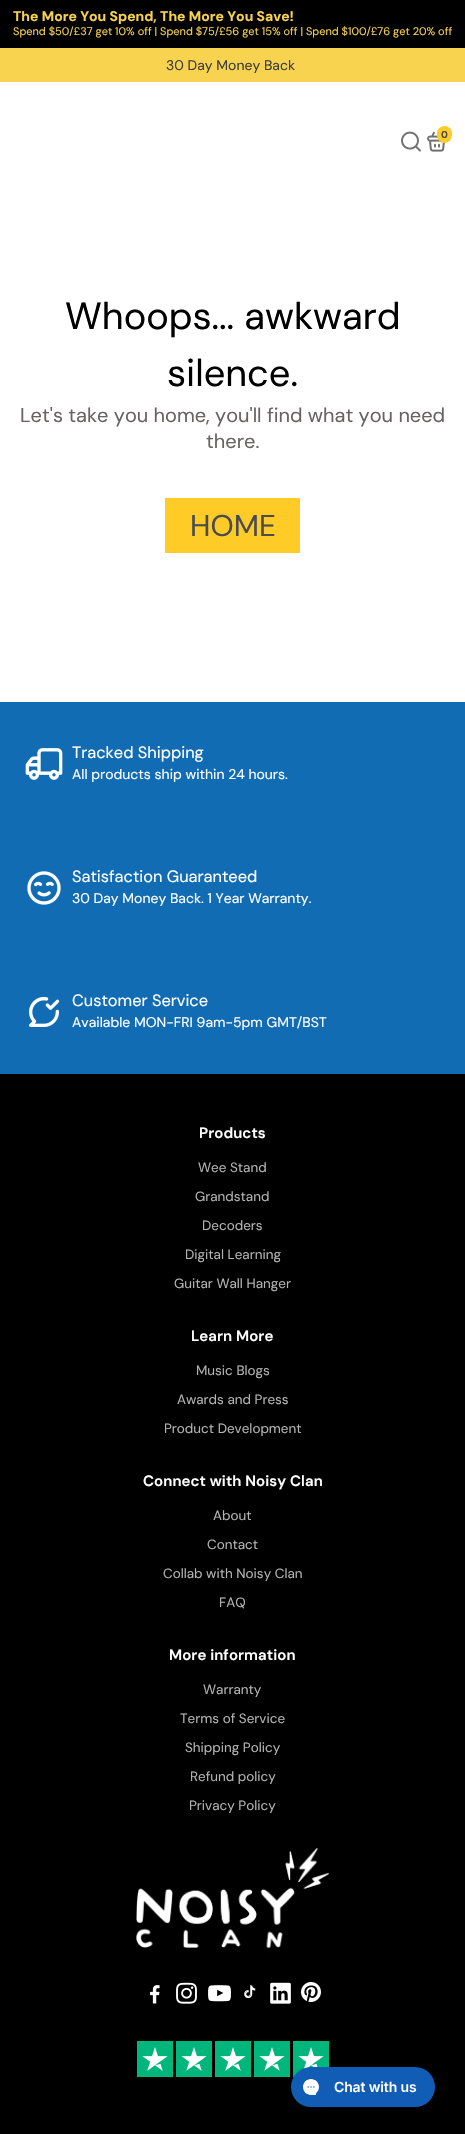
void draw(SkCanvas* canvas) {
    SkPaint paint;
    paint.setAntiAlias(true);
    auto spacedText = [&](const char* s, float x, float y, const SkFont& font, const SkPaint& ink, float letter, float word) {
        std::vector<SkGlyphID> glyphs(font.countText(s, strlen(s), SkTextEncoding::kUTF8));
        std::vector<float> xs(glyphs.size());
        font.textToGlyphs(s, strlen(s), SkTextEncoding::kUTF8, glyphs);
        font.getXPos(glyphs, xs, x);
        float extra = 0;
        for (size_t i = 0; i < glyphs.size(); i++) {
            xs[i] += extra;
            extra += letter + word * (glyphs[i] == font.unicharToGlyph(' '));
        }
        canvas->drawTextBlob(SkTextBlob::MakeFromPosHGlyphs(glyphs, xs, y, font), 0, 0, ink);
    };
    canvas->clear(0xFFFFFFFF);
    paint.setColor(0xFF000000);
    canvas->drawRect(SkRect::MakeXYWH(0, 0, 465, 48), paint);
    SkFont font1(fontMgr->matchFamilyStyle("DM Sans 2", SkFontStyle::Bold()), 14);
    font1.setSubpixel(true);
    paint.setColor(0xFFF6D24F);
    canvas->drawString("The More You Spend, The More You Save!", 13, 21, font1, paint);
    SkFont font2(fontMgr->matchFamilyStyle("DM Sans", SkFontStyle::Normal()), 11);
    font2.setSubpixel(true);
    canvas->drawString("Spend $50/£37 get 10% off | Spend $75/£56 get 15% off | Spend $100/£76 get 20% off", 13, 35, font2, paint);
    paint.setColor(0xFFF8D350);
    canvas->drawRect(SkRect::MakeXYWH(0, 48, 465, 34), paint);
    SkFont font3(fontMgr->matchFamilyStyle("DM Sans", SkFontStyle::Normal()), 14);
    font3.setSubpixel(true);
    paint.setColor(0xFF3D3D3D);
    canvas->drawString("30 Day Money Back", 166, 70, font3, paint);
    canvas->drawImageRect(SkImages::DeferredFromEncodedData(SkData::MakeFromFileName("img1.png")), SkRect::MakeXYWH(401, 131, 20, 21), SkSamplingOptions());
    canvas->drawImageRect(SkImages::DeferredFromEncodedData(SkData::MakeFromFileName("img2.png")), SkRect::MakeXYWH(427, 131, 18, 21), SkSamplingOptions());
    paint.setColor(0xFFFFCB27);
    canvas->drawRoundRect(SkRect::MakeXYWH(437, 126, 15, 17), 7.5f, 7.5f, paint);
    SkFont font4(fontMgr->matchFamilyStyle("DM Sans", SkFontStyle::Bold()), 10);
    font4.setSubpixel(true);
    paint.setColor(0xFF494C50);
    canvas->drawString("0", 441, 138, font4, paint);
    SkFont font5(fontMgr->matchFamilyStyle("DM Sans", SkFontStyle::Normal()), 38);
    font5.setSubpixel(true);
    paint.setColor(0xFF000000);
    canvas->drawString("Whoops... awkward", 65, 329, font5, paint);
    canvas->drawString("silence.", 167, 386, font5, paint);
    SkFont font6(fontMgr->matchFamilyStyle("DM Sans", SkFontStyle::Normal()), 20);
    font6.setSubpixel(true);
    paint.setColor(0xFF686363);
    canvas->drawString("Let's take you home, you'll find what you need", 20, 422, font6, paint);
    canvas->drawString("there.", 206, 448, font6, paint);
    paint.setColor(0xFFFFCB27);
    canvas->drawRect(SkRect::MakeXYWH(165, 498, 135, 55), paint);
    SkFont font7(fontMgr->matchFamilyStyle("DM Sans", SkFontStyle::Normal()), 30);
    font7.setSubpixel(true);
    paint.setColor(0xFF494C50);
    canvas->drawString("HOME", 190, 536, font7, paint);
    paint.setColor(0xFF116CB4);
    canvas->drawRect(SkRect::MakeXYWH(0, 702, 465, 372), paint);
    canvas->drawImageRect(SkImages::DeferredFromEncodedData(SkData::MakeFromFileName("img3.png")), SkRect::MakeXYWH(25, 748, 38, 32), SkSamplingOptions());
    SkFont font8(fontMgr->matchFamilyStyle("DM Sans", SkFontStyle::Normal()), 16.4f);
    font8.setSubpixel(true);
    paint.setColor(0xFFFFFFFF);
    canvas->drawString("Tracked Shipping", 72, 758, font8, paint);
    canvas->drawString("All products ship within 24 hours.", 72, 779, font3, paint);
    canvas->drawImageRect(SkImages::DeferredFromEncodedData(SkData::MakeFromFileName("img4.png")), SkRect::MakeXYWH(27, 871, 34, 34), SkSamplingOptions());
    canvas->drawString("Satisfaction Guaranteed", 72, 882, font8, paint);
    canvas->drawString("30 Day Money Back. 1 Year Warranty.", 72, 903, font3, paint);
    canvas->drawImageRect(SkImages::DeferredFromEncodedData(SkData::MakeFromFileName("img5.png")), SkRect::MakeXYWH(29, 996, 31, 31), SkSamplingOptions());
    canvas->drawString("Customer Service", 72, 1006, font8, paint);
    canvas->drawString("Available MON-FRI 9am-5pm GMT/BST", 72, 1027, font3, paint);
    paint.setColor(0xFF000000);
    canvas->drawRect(SkRect::MakeXYWH(0, 1074, 465, 1060), paint);
    SkFont font9(fontMgr->matchFamilyStyle("DM Sans", SkFontStyle(600, SkFontStyle::kNormal_Width, SkFontStyle::kUpright_Slant)), 15);
    font9.setSubpixel(true);
    paint.setColor(0xFFFFFFFF);
    spacedText("Products", 199, 1138, font9, paint, 0.1f, 0);
    SkFont font10(fontMgr->matchFamilyStyle("DM Sans", SkFontStyle::Normal()), 13.5f);
    font10.setSubpixel(true);
    paint.setColor(0xFFB3B3B3);
    canvas->drawString("Wee Stand", 198, 1172, font10, paint);
    canvas->drawString("Grandstand", 195, 1201, font10, paint);
    canvas->drawString("Decoders", 202, 1230, font10, paint);
    canvas->drawString("Digital Learning", 185, 1259, font10, paint);
    canvas->drawString("Guitar Wall Hanger", 174, 1288, font10, paint);
    paint.setColor(0xFFFFFFFF);
    spacedText("Learn More", 191, 1341, font9, paint, 0.1f, 0);
    paint.setColor(0xFFB3B3B3);
    canvas->drawString("Music Blogs", 196, 1375, font10, paint);
    canvas->drawString("Awards and Press", 177, 1404, font10, paint);
    canvas->drawString("Product Development", 164, 1433, font10, paint);
    paint.setColor(0xFFFFFFFF);
    spacedText("Connect with Noisy Clan", 143, 1486, font9, paint, 0.1f, 0);
    paint.setColor(0xFFB3B3B3);
    canvas->drawString("About", 213, 1520, font10, paint);
    canvas->drawString("Contact", 207, 1549, font10, paint);
    canvas->drawString("Collab with Noisy Clan", 163, 1578, font10, paint);
    canvas->drawString("FAQ", 219, 1607, font10, paint);
    paint.setColor(0xFFFFFFFF);
    spacedText("More information", 169, 1660, font9, paint, 0.1f, 0);
    paint.setColor(0xFFB3B3B3);
    canvas->drawString("Warranty", 203, 1694, font10, paint);
    canvas->drawString("Terms of Service", 180, 1723, font10, paint);
    canvas->drawString("Shipping Policy", 185, 1752, font10, paint);
    canvas->drawString("Refund policy", 190, 1781, font10, paint);
    canvas->drawString("Privacy Policy", 189, 1810, font10, paint);
    canvas->drawImageRect(SkImages::DeferredFromEncodedData(SkData::MakeFromFileName("img6.png")), SkRect::MakeXYWH(136, 1848, 193, 100), SkSamplingOptions());
    canvas->drawImageRect(SkImages::DeferredFromEncodedData(SkData::MakeFromFileName("img7.png")), SkRect::MakeXYWH(150, 1985, 10, 19), SkSamplingOptions());
    canvas->drawImageRect(SkImages::DeferredFromEncodedData(SkData::MakeFromFileName("img8.png")), SkRect::MakeXYWH(176, 1982, 21, 22), SkSamplingOptions());
    canvas->drawImageRect(SkImages::DeferredFromEncodedData(SkData::MakeFromFileName("img9.png")), SkRect::MakeXYWH(208, 1985, 23, 17), SkSamplingOptions());
    canvas->drawImageRect(SkImages::DeferredFromEncodedData(SkData::MakeFromFileName("img10.png")), SkRect::MakeXYWH(244, 1985, 12, 14), SkSamplingOptions());
    canvas->drawImageRect(SkImages::DeferredFromEncodedData(SkData::MakeFromFileName("img11.png")), SkRect::MakeXYWH(270, 1982, 21, 22), SkSamplingOptions());
    canvas->drawImageRect(SkImages::DeferredFromEncodedData(SkData::MakeFromFileName("img12.png")), SkRect::MakeXYWH(301, 1982, 20, 20), SkSamplingOptions());
    canvas->drawImageRect(SkImages::DeferredFromEncodedData(SkData::MakeFromFileName("img13.png")), SkRect::MakeXYWH(137, 2041, 192, 36), SkSamplingOptions());
    canvas->drawImageRect(SkImages::DeferredFromEncodedData(SkData::MakeFromFileName("img14.png")), SkRect::MakeXYWH(291, 2067, 144, 40), SkSamplingOptions());
}
